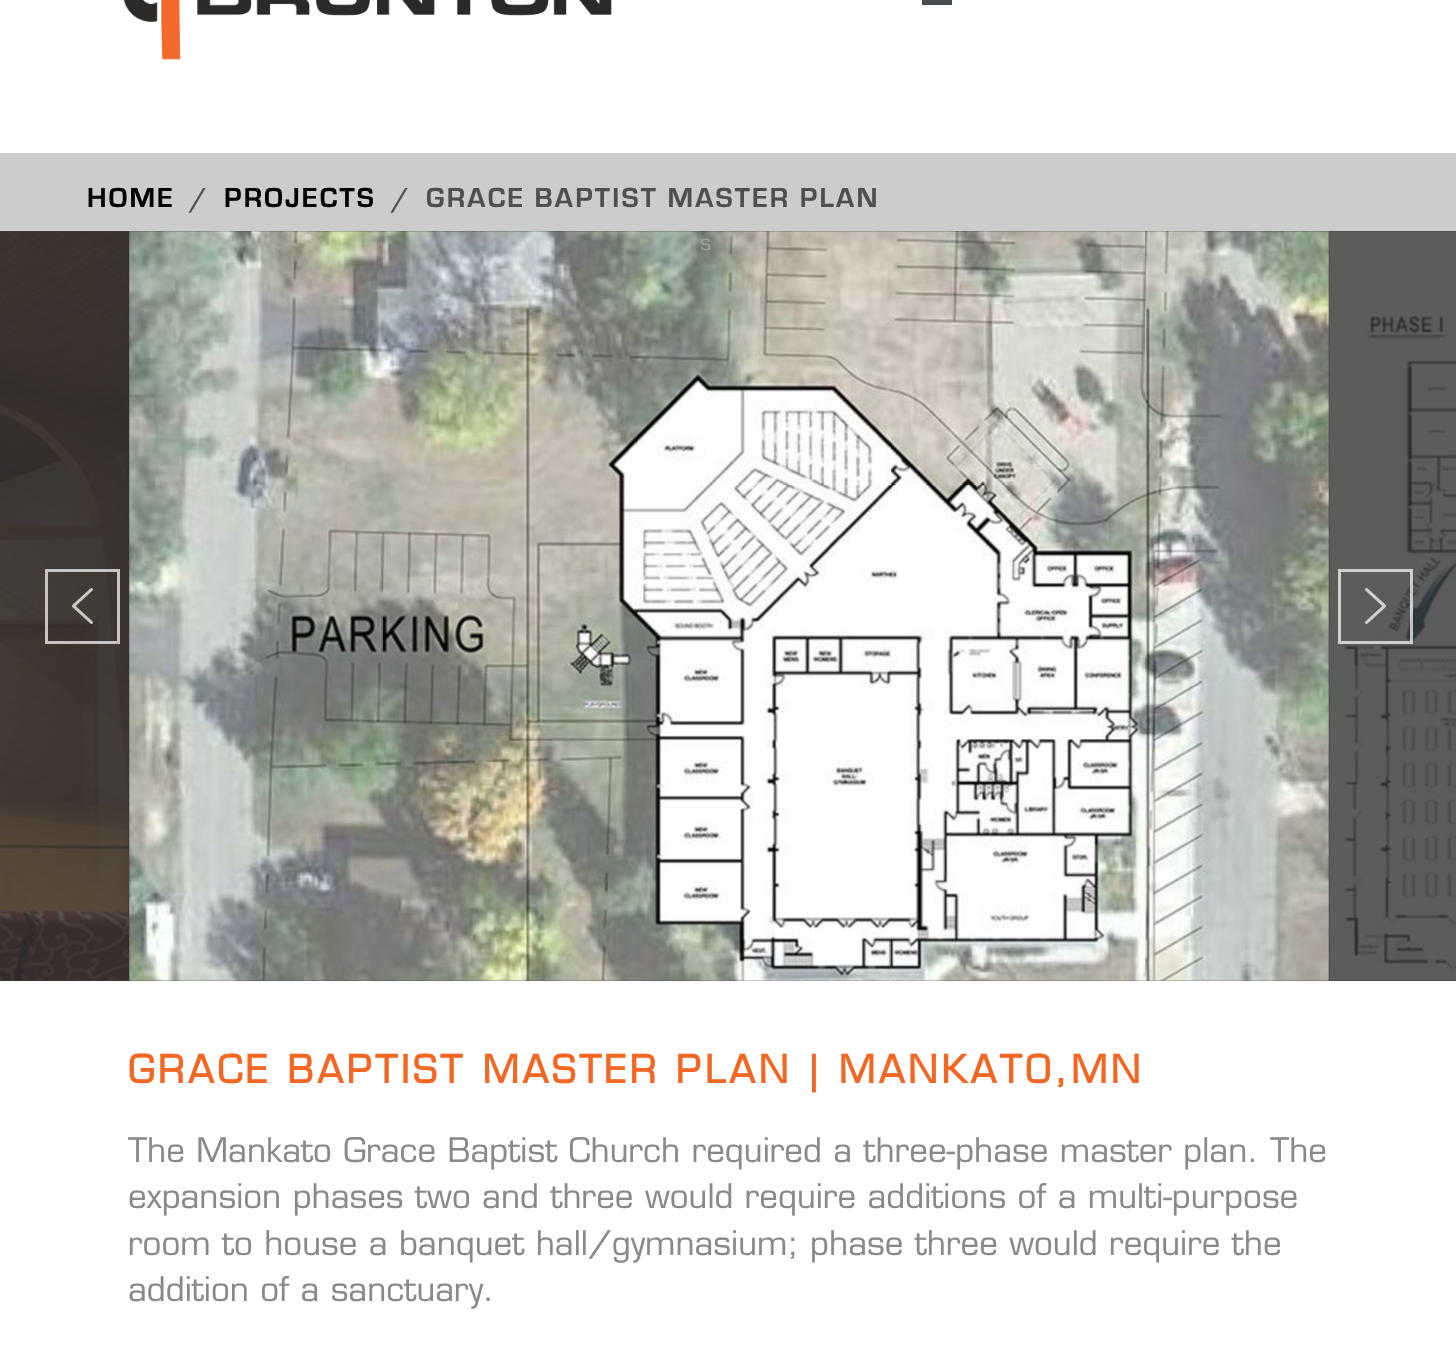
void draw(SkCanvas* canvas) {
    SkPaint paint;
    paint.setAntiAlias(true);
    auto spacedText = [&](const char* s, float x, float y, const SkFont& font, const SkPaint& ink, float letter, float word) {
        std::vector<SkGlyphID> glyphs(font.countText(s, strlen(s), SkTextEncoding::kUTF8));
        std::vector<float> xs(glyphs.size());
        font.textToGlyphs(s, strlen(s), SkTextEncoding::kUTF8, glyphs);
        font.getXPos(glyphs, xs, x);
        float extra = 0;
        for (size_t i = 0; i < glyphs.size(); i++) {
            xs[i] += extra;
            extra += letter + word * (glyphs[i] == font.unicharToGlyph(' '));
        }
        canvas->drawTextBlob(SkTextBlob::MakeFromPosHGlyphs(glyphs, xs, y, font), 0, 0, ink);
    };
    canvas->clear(0xFFFFFFFF);
    canvas->drawImageRect(SkImages::DeferredFromEncodedData(SkData::MakeFromFileName("img1.png")), SkRect::MakeXYWH(123, 0, 489, 60), SkSamplingOptions());
    paint.setColor(0xFF494C4F);
    canvas->drawRect(SkRect::MakeXYWH(922, 0, 30, 5), paint);
    paint.setColor(0xFFCCCCCC);
    canvas->drawRect(SkRect::MakeXYWH(0, 153, 1456, 78), paint);
    SkFont font1(fontMgr->matchFamilyStyle("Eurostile", SkFontStyle::Bold()), 28.5f);
    font1.setSubpixel(true);
    paint.setColor(0xFF000000);
    spacedText("HOME", 87, 207, font1, paint, 2.25f, 0);
    paint.setColor(0xFF514E4E);
    spacedText("/", 190, 207, font1, paint, 2.25f, 0);
    paint.setColor(0xFF000000);
    spacedText("PROJECTS", 224, 207, font1, paint, 2.25f, 0);
    paint.setColor(0xFF514E4E);
    spacedText("/", 392, 207, font1, paint, 2.25f, 0);
    spacedText("GRACE BAPTIST MASTER PLAN", 426, 207, font1, paint, 2.25f, 0);
    paint.setColor(0xFF333333);
    canvas->drawRect(SkRect::MakeXYWH(0, 231, 1456, 750), paint);
    canvas->drawImageRect(SkImages::DeferredFromEncodedData(SkData::MakeFromFileName("img2.png")), SkRect::MakeXYWH(0, 231, 129, 750), SkSamplingOptions());
    canvas->drawImageRect(SkImages::DeferredFromEncodedData(SkData::MakeFromFileName("img3.png")), SkRect::MakeXYWH(129, 231, 1200, 750), SkSamplingOptions());
    SkFont font2(fontMgr->matchFamilyStyle("Eurostile", SkFontStyle::Normal()), 24);
    font2.setSubpixel(true);
    paint.setColor(0xFF9EA396);
    canvas->drawString("s", 700, 250, font2, paint);
    canvas->drawImageRect(SkImages::DeferredFromEncodedData(SkData::MakeFromFileName("img4.png")), SkRect::MakeXYWH(1329, 231, 127, 750), SkSamplingOptions());
    paint.setStyle(SkPaint::kStroke_Style);
    paint.setStrokeWidth(3);
    paint.setColor(0xB3FFFFFF);
    canvas->drawRect(SkRect::MakeXYWH(46.5f, 570.5f, 72, 72), paint);
    canvas->drawImageRect(SkImages::DeferredFromEncodedData(SkData::MakeFromFileName("img5.png")), SkRect::MakeXYWH(72, 588, 21, 36), SkSamplingOptions());
    canvas->drawRect(SkRect::MakeXYWH(1339.5f, 570.5f, 72, 72), paint);
    canvas->drawImageRect(SkImages::DeferredFromEncodedData(SkData::MakeFromFileName("img6.png")), SkRect::MakeXYWH(1365, 588, 21, 36), SkSamplingOptions());
    SkFont font3(fontMgr->matchFamilyStyle("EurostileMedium", SkFontStyle::Bold()), 37.5f);
    font3.setSubpixel(true);
    paint.setStyle(SkPaint::kFill_Style);
    paint.setColor(0xFFF26724);
    spacedText("GRACE BAPTIST MASTER PLAN | MANKATO,MN", 128, 1083, font3, paint, 3.75f, 0);
    SkFont font4(fontMgr->matchFamilyStyle("EurostileMedium", SkFontStyle(500, SkFontStyle::kNormal_Width, SkFontStyle::kUpright_Slant)), 33);
    font4.setSubpixel(true);
    paint.setColor(0xFF898989);
    canvas->drawString("The Mankato Grace Baptist Church required a three-phase master plan. The", 128, 1162, font4, paint);
    canvas->drawString("expansion phases two and three would require additions of a multi-purpose", 128, 1208, font4, paint);
    canvas->drawString("room to house a banquet hall/gymnasium; phase three would require the", 128, 1255, font4, paint);
    canvas->drawString("addition of a sanctuary.", 128, 1301, font4, paint);
}
